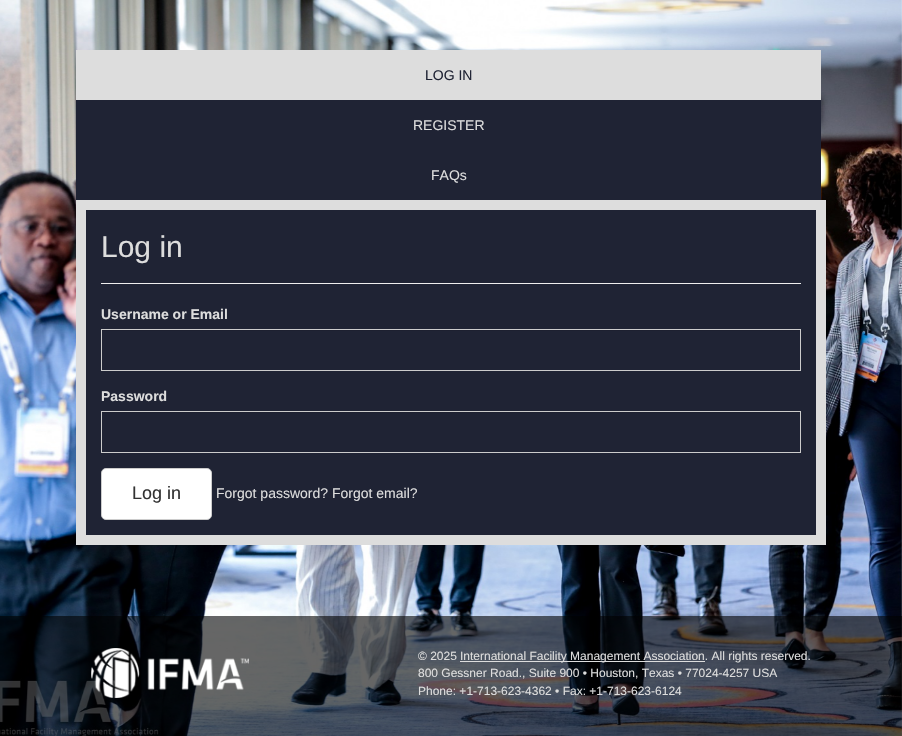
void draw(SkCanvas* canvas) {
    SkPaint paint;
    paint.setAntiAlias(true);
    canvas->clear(0xFFFFFFFF);
    canvas->drawImageRect(SkImages::DeferredFromEncodedData(SkData::MakeFromFileName("img1.png")), SkRect::MakeXYWH(0, 0, 902, 736), SkSamplingOptions());
    paint.setColor(0xFFDDDDDD);
    canvas->drawRect(SkRect::MakeXYWH(76, 50, 745, 50), paint);
    SkFont font1(fontMgr->matchFamilyStyle("Liberation Sans", SkFontStyle::Normal()), 14);
    font1.setSubpixel(true);
    paint.setColor(0xFF1F2334);
    canvas->drawString("LOG IN", 425, 80, font1, paint);
    canvas->drawRect(SkRect::MakeXYWH(76, 100, 745, 100), paint);
    paint.setColor(0xFFDDDDDD);
    canvas->drawString("REGISTER", 413, 130, font1, paint);
    canvas->drawString("FAQs", 431, 180, font1, paint);
    paint.setColor(0xFF1F2334);
    canvas->drawRect(SkRect::MakeXYWH(81, 205, 740, 335), paint);
    paint.setStyle(SkPaint::kStroke_Style);
    paint.setStrokeWidth(10);
    paint.setColor(0xFFDDDDDD);
    canvas->drawRect(SkRect::MakeXYWH(81, 205, 740, 335), paint);
    SkFont font2(fontMgr->matchFamilyStyle("Liberation Sans", SkFontStyle::Normal()), 30);
    font2.setSubpixel(true);
    paint.setStyle(SkPaint::kFill_Style);
    canvas->drawString("Log in", 101, 257, font2, paint);
    paint.setColor(0xFFEEEEEE);
    canvas->drawRect(SkRect::MakeXYWH(101, 283, 700, 1), paint);
    SkFont font3(fontMgr->matchFamilyStyle("Liberation Sans", SkFontStyle::Bold()), 14);
    font3.setSubpixel(true);
    paint.setColor(0xFFDDDDDD);
    canvas->drawString("Username or Email", 101, 319, font3, paint);
    paint.setColor(0xFF1D2030);
    canvas->drawRect(SkRect::MakeXYWH(102, 330, 698, 1), paint);
    paint.setStyle(SkPaint::kStroke_Style);
    paint.setStrokeWidth(1);
    paint.setColor(0xFFCCCCCC);
    canvas->drawRect(SkRect::MakeXYWH(101.5f, 329.5f, 699, 41), paint);
    paint.setStyle(SkPaint::kFill_Style);
    paint.setColor(0xFFDDDDDD);
    canvas->drawString("Password", 101, 401, font3, paint);
    paint.setColor(0xFF1D2030);
    canvas->drawRect(SkRect::MakeXYWH(102, 412, 698, 1), paint);
    paint.setStyle(SkPaint::kStroke_Style);
    paint.setColor(0xFFCCCCCC);
    canvas->drawRect(SkRect::MakeXYWH(101.5f, 411.5f, 699, 41), paint);
    paint.setStyle(SkPaint::kFill_Style);
    paint.setColor(0xFFFFFFFF);
    canvas->drawRoundRect(SkRect::MakeXYWH(101.5f, 468.5f, 110, 51), 4.5f, 4.5f, paint);
    paint.setStyle(SkPaint::kStroke_Style);
    paint.setColor(0xFFCCCCCC);
    canvas->drawRoundRect(SkRect::MakeXYWH(101.5f, 468.5f, 110, 51), 4.5f, 4.5f, paint);
    SkFont font4(fontMgr->matchFamilyStyle("Liberation Sans", SkFontStyle::Normal()), 18);
    font4.setSubpixel(true);
    paint.setStyle(SkPaint::kFill_Style);
    paint.setColor(0xFF333333);
    canvas->drawString("Log in", 132, 499, font4, paint);
    paint.setColor(0xFFDDDDDD);
    canvas->drawString("Forgot password? Forgot email?", 216, 498, font1, paint);
    paint.setColor(0x99000000);
    canvas->drawRect(SkRect::MakeXYWH(0, 616, 902, 120), paint);
    canvas->drawImageRect(SkImages::DeferredFromEncodedData(SkData::MakeFromFileName("img2.png")), SkRect::MakeXYWH(91, 648, 158, 50), SkSamplingOptions());
    SkFont font5(fontMgr->matchFamilyStyle("Liberation Sans", SkFontStyle::Normal()), 12);
    font5.setSubpixel(true);
    paint.setColor(0xFFDDDDDD);
    canvas->drawString("© 2025", 418, 660, font5, paint);
    canvas->drawRect(SkRect::MakeXYWH(460, 661, 245, 1), paint);
    canvas->drawString("International Facility Management Association. All rights reserved.", 460, 660, font5, paint);
    canvas->drawString("800 Gessner Road., Suite 900 • Houston, Texas • 77024-4257 USA", 418, 677, font5, paint);
    canvas->drawString("Phone: +1-713-623-4362 • Fax: +1-713-623-6124", 418, 695, font5, paint);
}
